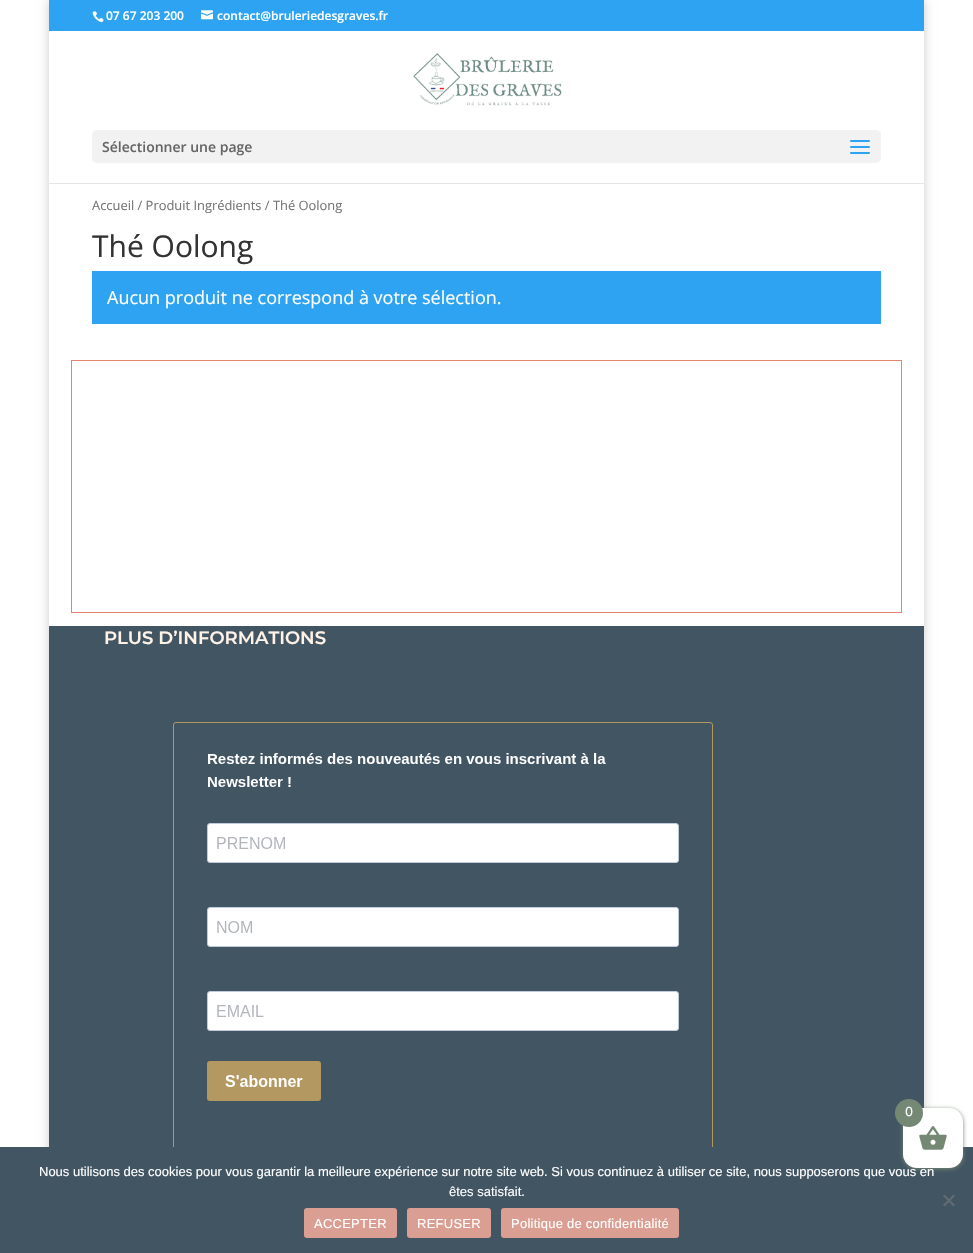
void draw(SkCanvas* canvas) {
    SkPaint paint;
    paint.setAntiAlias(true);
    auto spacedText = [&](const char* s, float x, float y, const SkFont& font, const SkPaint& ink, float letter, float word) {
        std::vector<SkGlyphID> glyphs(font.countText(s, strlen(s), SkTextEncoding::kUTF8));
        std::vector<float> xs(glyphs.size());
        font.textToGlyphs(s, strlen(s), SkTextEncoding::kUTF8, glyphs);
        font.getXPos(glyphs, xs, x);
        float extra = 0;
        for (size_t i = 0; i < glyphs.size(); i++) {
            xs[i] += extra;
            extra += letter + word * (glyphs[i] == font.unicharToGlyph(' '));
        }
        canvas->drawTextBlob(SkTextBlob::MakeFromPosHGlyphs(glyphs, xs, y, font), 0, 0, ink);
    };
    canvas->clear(0xFFFFFFFF);
    canvas->save();
    canvas->clipPath(SkPathBuilder(SkPathFillType::kEvenOdd).moveTo(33, 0).lineTo(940, 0).lineTo(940, 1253).lineTo(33, 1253).close().moveTo(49, 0).lineTo(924, 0).lineTo(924, 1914).lineTo(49, 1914).close().detach(), true);
    paint.setColor(0x33000000);
    paint.setMaskFilter(SkMaskFilter::MakeBlur(kNormal_SkBlurStyle, 5));
    canvas->drawRect(SkRect::MakeXYWH(49, 0, 875, 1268), paint);
    paint.setMaskFilter(nullptr);
    canvas->restore();
    paint.setColor(0xFF2EA3F2);
    canvas->drawRect(SkRect::MakeXYWH(49, 0, 875, 31), paint);
    canvas->drawImageRect(SkImages::DeferredFromEncodedData(SkData::MakeFromFileName("img1.png")), SkRect::MakeXYWH(92, 11, 12, 12), SkSamplingOptions());
    SkFont font1(fontMgr->matchFamilyStyle("Open Sans", SkFontStyle(600, SkFontStyle::kNormal_Width, SkFontStyle::kUpright_Slant)), 12);
    font1.setSubpixel(true);
    paint.setColor(0xFFFFFFFF);
    canvas->drawString("07 67 203 200", 106, 20, font1, paint);
    canvas->drawImageRect(SkImages::DeferredFromEncodedData(SkData::MakeFromFileName("img2.png")), SkRect::MakeXYWH(201, 10, 12, 10), SkSamplingOptions());
    canvas->drawString("contact@bruleriedesgraves.fr", 217, 20, font1, paint);
    paint.setColor(0xFFE6E6E6);
    canvas->drawRect(SkRect::MakeXYWH(49, 183, 875, 1), paint);
    canvas->drawImageRect(SkImages::DeferredFromEncodedData(SkData::MakeFromFileName("img3.png")), SkRect::MakeXYWH(413, 53, 149, 53), SkSamplingOptions());
    paint.setColor(0xFFF2F2F2);
    canvas->drawRoundRect(SkRect::MakeXYWH(92, 130, 789, 33), 5, 5, paint);
    SkFont font2(fontMgr->matchFamilyStyle("Open Sans", SkFontStyle(600, SkFontStyle::kNormal_Width, SkFontStyle::kUpright_Slant)), 14);
    font2.setSubpixel(true);
    paint.setColor(0xFF666666);
    canvas->drawString("Sélectionner une page", 102, 152, font2, paint);
    canvas->drawImageRect(SkImages::DeferredFromEncodedData(SkData::MakeFromFileName("img4.png")), SkRect::MakeXYWH(850, 140, 20, 14), SkSamplingOptions());
    SkFont font3(fontMgr->matchFamilyStyle("Open Sans", SkFontStyle::Normal()), 12.9f);
    font3.setSubpixel(true);
    paint.setColor(0xFF767676);
    canvas->drawString("Accueil / Produit Ingrédients / Thé Oolong", 92, 210, font3, paint);
    SkFont font4(fontMgr->matchFamilyStyle("Open Sans", SkFontStyle::Normal()), 30);
    font4.setSubpixel(true);
    paint.setColor(0xFF333333);
    canvas->drawString("Thé Oolong", 92, 257, font4, paint);
    paint.setColor(0xFF2EA3F2);
    canvas->drawRect(SkRect::MakeXYWH(92, 271, 789, 53), paint);
    SkFont font5(fontMgr->matchFamilyStyle("Open Sans", SkFontStyle::Normal()), 18);
    font5.setSubpixel(true);
    paint.setColor(0xFFFFFFFF);
    canvas->drawString("Aucun produit ne correspond à votre sélection.", 107, 304, font5, paint);
    paint.setStyle(SkPaint::kStroke_Style);
    paint.setStrokeWidth(1);
    paint.setColor(0xFFE38473);
    canvas->drawRect(SkRect::MakeXYWH(71.5f, 360.5f, 830, 252), paint);
    paint.setStyle(SkPaint::kFill_Style);
    paint.setColor(0xFF425563);
    canvas->drawRect(SkRect::MakeXYWH(49, 626, 875, 521), paint);
    SkFont font6(fontMgr->matchFamilyStyle("Montserrat", SkFontStyle(100, SkFontStyle::kNormal_Width, SkFontStyle::kUpright_Slant)), 18);
    font6.setSubpixel(true);
    paint.setColor(0xFFFFF2E7);
    canvas->drawString("PLUS D’INFORMATIONS", 104, 644, font6, paint);
    canvas->drawImageRect(SkImages::DeferredFromEncodedData(SkData::MakeFromFileName("img5.png")), SkRect::MakeXYWH(173, 722, 540, 425), SkSamplingOptions());
    paint.setColor(0xFF425563);
    canvas->drawRect(SkRect::MakeXYWH(0, 1147, 973, 106), paint);
    paint.setColor(0xFF758874);
    paint.setMaskFilter(SkMaskFilter::MakeBlur(kNormal_SkBlurStyle, 2));
    canvas->drawRoundRect(SkRect::MakeXYWH(903, 1109, 60, 60), 14, 14, paint);
    paint.setMaskFilter(nullptr);
    paint.setColor(0xFFFFFFFF);
    canvas->drawRoundRect(SkRect::MakeXYWH(903, 1108, 60, 60), 14, 14, paint);
    canvas->drawImageRect(SkImages::DeferredFromEncodedData(SkData::MakeFromFileName("img6.png")), SkRect::MakeXYWH(919, 1126, 28, 24), SkSamplingOptions());
    paint.setColor(0xFF758874);
    canvas->drawCircle(909, 1113, 14, paint);
    SkFont font7(fontMgr->matchFamilyStyle("Amiko", SkFontStyle::Normal()), 13);
    font7.setSubpixel(true);
    paint.setColor(0xFFFFFFFF);
    canvas->drawString("0", 905, 1116, font7, paint);
    SkFont font8(fontMgr->matchFamilyStyle("Liberation Sans", SkFontStyle::Normal()), 13);
    font8.setSubpixel(true);
    canvas->drawString("Nous utilisons des cookies pour vous garantir la meilleure expérience sur notre site web. Si vous continuez à utiliser ce site, nous supposerons que vous en", 39, 1176, font8, paint);
    canvas->drawString("êtes satisfait.", 449, 1196, font8, paint);
    paint.setColor(0xFF616B72);
    canvas->drawPath(SkPathBuilder().moveTo(953.5f, 1194.5f).lineTo(955, 1196).lineTo(944.5f, 1206.5f).lineTo(943, 1205).close().detach(), paint);
    canvas->drawPath(SkPathBuilder().moveTo(943, 1196).lineTo(944.5f, 1194.5f).lineTo(955, 1205).lineTo(953.5f, 1206.5f).close().detach(), paint);
    paint.setColor(0xFFDB9E92);
    canvas->drawRoundRect(SkRect::MakeXYWH(304, 1208, 93, 30), 3, 3, paint);
    paint.setColor(0xFFFFFFFF);
    spacedText("ACCEPTER", 314, 1228, font8, paint, 0.25f, 0);
    paint.setColor(0xFFDB9E92);
    canvas->drawRoundRect(SkRect::MakeXYWH(407, 1208, 84, 30), 3, 3, paint);
    paint.setColor(0xFFFFFFFF);
    spacedText("REFUSER", 417, 1228, font8, paint, 0.25f, 0);
    paint.setColor(0xFFDB9E92);
    canvas->drawRoundRect(SkRect::MakeXYWH(501, 1208, 178, 30), 3, 3, paint);
    paint.setColor(0xFFFFFFFF);
    spacedText("Politique de confidentialité", 511, 1228, font8, paint, 0.25f, 0);
}
